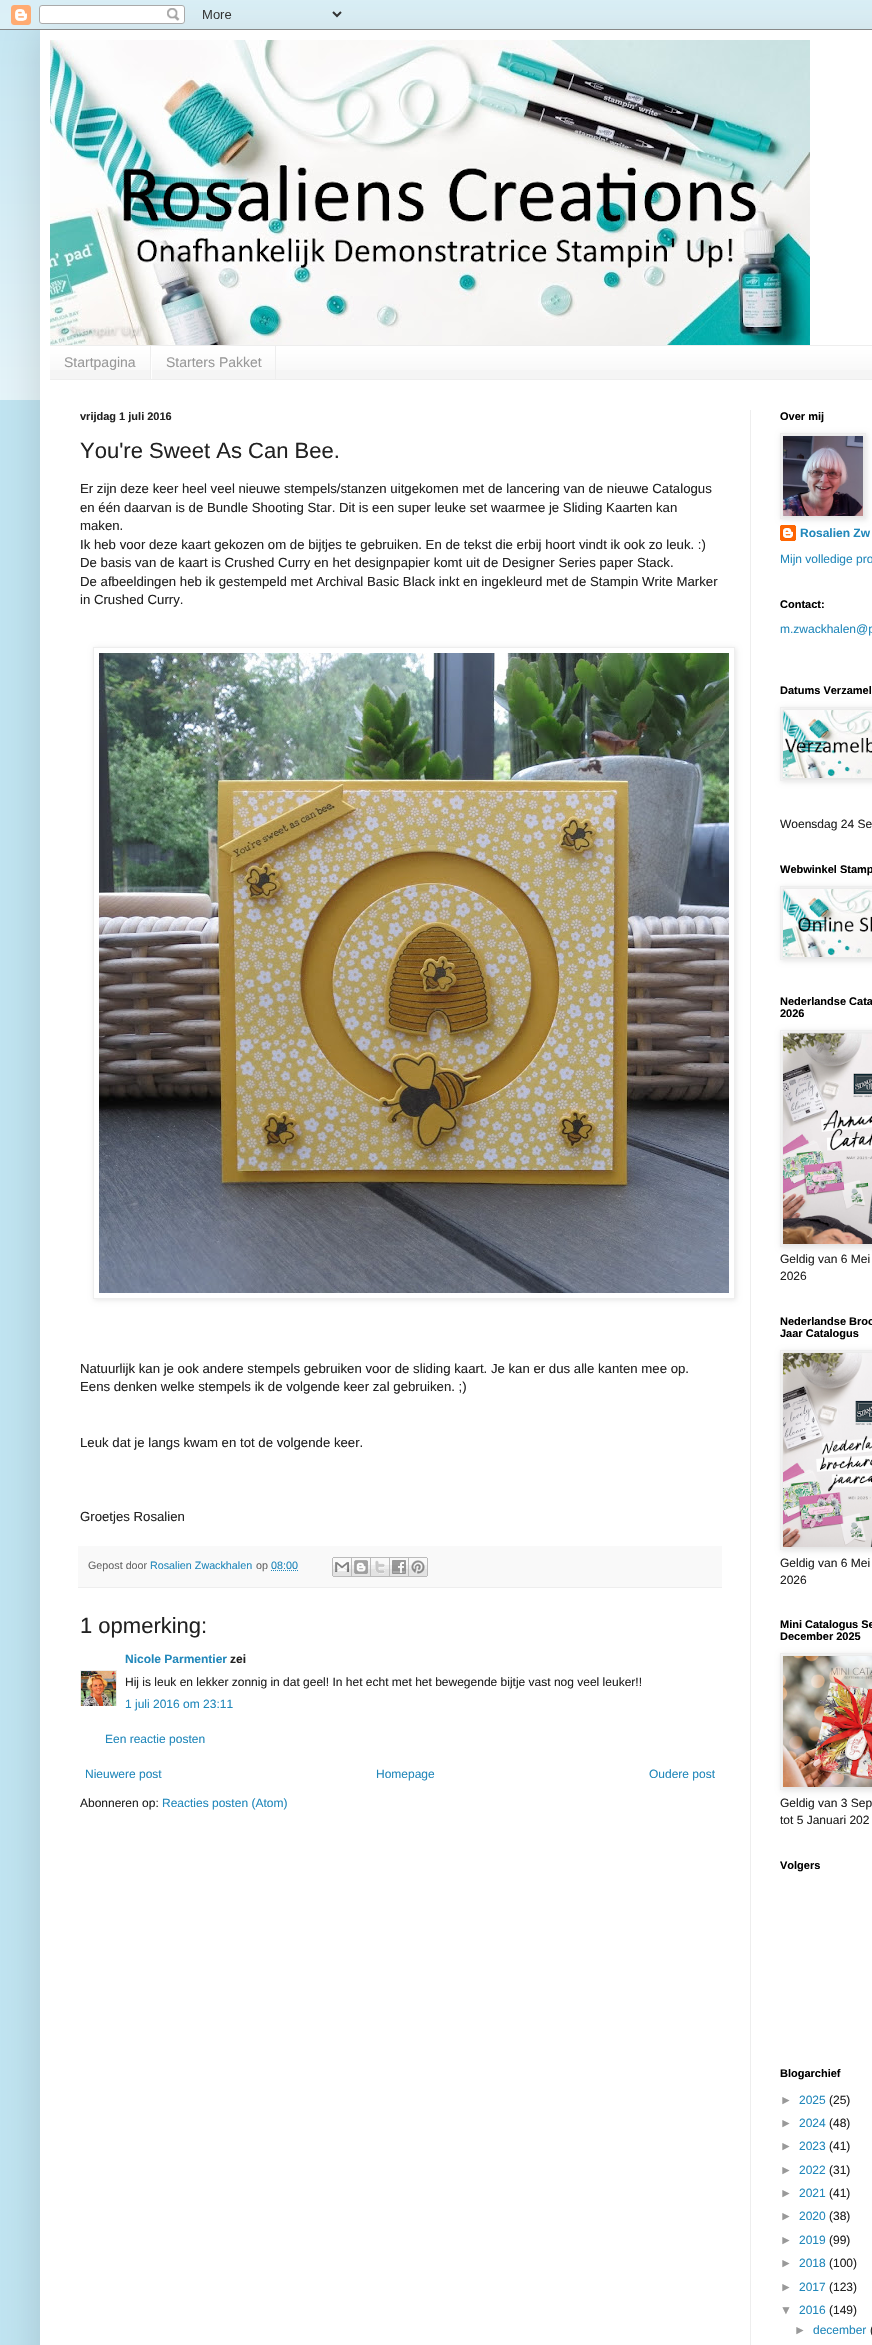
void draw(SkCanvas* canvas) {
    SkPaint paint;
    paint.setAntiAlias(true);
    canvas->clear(0xFFC1E5F2);
    canvas->drawImageRect(SkImages::DeferredFromEncodedData(SkData::MakeFromFileName("img2.png")), SkRect::MakeXYWH(0, 10, 872, 390), SkSamplingOptions());
    paint.setColor(0x26000000);
    paint.setMaskFilter(SkMaskFilter::MakeBlur(kNormal_SkBlurStyle, 20));
    canvas->drawRect(SkRect::MakeXYWH(40, 30, 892, 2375), paint);
    paint.setMaskFilter(nullptr);
    canvas->drawImageRect(SkImages::DeferredFromEncodedData(SkData::MakeFromFileName("img1.png")), SkRect::MakeXYWH(0, 0, 872, 30), SkSamplingOptions());
    paint.setColor(0xFFFFFFFF);
    canvas->drawRect(SkRect::MakeXYWH(40, 30, 832, 2315), paint);
    canvas->drawImageRect(SkImages::DeferredFromEncodedData(SkData::MakeFromFileName("img3.png")), SkRect::MakeXYWH(50, 40, 760, 305), SkSamplingOptions());
    paint.setColor(0xFFF5F5F5);
    canvas->drawRect(SkRect::MakeXYWH(50, 347, 822, 32), paint);
    canvas->drawImageRect(SkImages::DeferredFromEncodedData(SkData::MakeFromFileName("img4.png")), SkRect::MakeXYWH(50, 346, 822, 24), SkSamplingOptions());
    paint.setColor(0xFFEEEEEE);
    canvas->drawRect(SkRect::MakeXYWH(50, 345, 822, 1), paint);
    canvas->drawRect(SkRect::MakeXYWH(50, 379, 822, 1), paint);
    canvas->drawRect(SkRect::MakeXYWH(150, 346, 1, 33), paint);
    SkFont font1(fontMgr->matchFamilyStyle("Liberation Sans", SkFontStyle::Normal()), 14);
    font1.setSubpixel(true);
    paint.setColor(0xFF999999);
    canvas->drawString("Startpagina", 64, 367, font1, paint);
    paint.setColor(0xFFEEEEEE);
    canvas->drawRect(SkRect::MakeXYWH(275, 346, 1, 33), paint);
    paint.setColor(0xFFFFFFFF);
    canvas->drawRect(SkRect::MakeXYWH(151, 357, 1, 22), paint);
    paint.setColor(0xFF999999);
    canvas->drawString("Starters Pakket", 166, 367, font1, paint);
    paint.setColor(0xFFEEEEEE);
    canvas->drawRect(SkRect::MakeXYWH(750, 410, 1, 1935), paint);
    SkFont font2(fontMgr->matchFamilyStyle("Liberation Sans", SkFontStyle::Bold()), 11);
    font2.setSubpixel(true);
    paint.setColor(0xFF222222);
    canvas->drawString("vrijdag 1 juli 2016", 80, 420, font2, paint);
    SkFont font3(fontMgr->matchFamilyStyle("Liberation Sans", SkFontStyle::Normal()), 22);
    font3.setSubpixel(true);
    canvas->drawString("You're Sweet As Can Bee.", 80, 458, font3, paint);
    SkFont font4(fontMgr->matchFamilyStyle("Liberation Sans", SkFontStyle::Normal()), 13.2f);
    font4.setSubpixel(true);
    canvas->drawString("Er zijn deze keer heel veel nieuwe stempels/stanzen uitgekomen met de lancering van de nieuwe Catalogus", 80, 493, font4, paint);
    canvas->drawString("en één daarvan is de Bundle Shooting Star. Dit is een super leuke set waarmee je Sliding Kaarten kan", 80, 512, font4, paint);
    canvas->drawString("maken.", 80, 530, font4, paint);
    canvas->drawString("Ik heb voor deze kaart gekozen om de bijtjes te gebruiken. En de tekst die erbij hoort vindt ik ook zo leuk. :)", 80, 549, font4, paint);
    canvas->drawString("De basis van de kaart is Crushed Curry en het designpapier komt uit de Designer Series paper Stack.", 80, 567, font4, paint);
    canvas->drawString("De afbeeldingen heb ik gestempeld met Archival Basic Black inkt en ingekleurd met de Stampin Write Marker", 80, 586, font4, paint);
    canvas->drawString("in Crushed Curry.", 80, 604, font4, paint);
    canvas->save();
    canvas->clipPath(SkPathBuilder(SkPathFillType::kEvenOdd).moveTo(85, 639).lineTo(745, 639).lineTo(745, 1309).lineTo(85, 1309).close().moveTo(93, 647).lineTo(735, 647).lineTo(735, 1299).lineTo(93, 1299).close().detach(), true);
    paint.setColor(0x1A000000);
    paint.setMaskFilter(SkMaskFilter::MakeBlur(kNormal_SkBlurStyle, 2.5f));
    canvas->drawRect(SkRect::MakeXYWH(94, 648, 642, 652), paint);
    paint.setMaskFilter(nullptr);
    canvas->restore();
    paint.setStyle(SkPaint::kStroke_Style);
    paint.setStrokeWidth(1);
    paint.setColor(0xFFEEEEEE);
    canvas->drawRect(SkRect::MakeXYWH(93.5f, 647.5f, 641, 651), paint);
    canvas->drawImageRect(SkImages::DeferredFromEncodedData(SkData::MakeFromFileName("img5.png")), SkRect::MakeXYWH(99, 653, 630, 640), SkSamplingOptions());
    paint.setStyle(SkPaint::kFill_Style);
    paint.setColor(0xFF222222);
    canvas->drawString("Natuurlijk kan je ook andere stempels gebruiken voor de sliding kaart. Je kan er dus alle kanten mee op.", 80, 1373, font4, paint);
    canvas->drawString("Eens denken welke stempels ik de volgende keer zal gebruiken. ;)", 80, 1391, font4, paint);
    canvas->drawString("Leuk dat je langs kwam en tot de volgende keer.", 80, 1447, font4, paint);
    canvas->drawString("Groetjes Rosalien", 80, 1521, font4, paint);
    paint.setColor(0xFFF9F9F9);
    canvas->drawRect(SkRect::MakeXYWH(78, 1546, 644, 41), paint);
    paint.setColor(0xFFEEEEEE);
    canvas->drawRect(SkRect::MakeXYWH(78, 1587, 644, 1), paint);
    SkFont font5(fontMgr->matchFamilyStyle("Liberation Sans", SkFontStyle::Normal()), 10.75f);
    font5.setSubpixel(true);
    paint.setColor(0xFF666666);
    canvas->drawString("Gepost door", 88, 1569, font5, paint);
    paint.setColor(0xFF2288BB);
    canvas->drawString("Rosalien Zwackhalen", 150, 1569, font5, paint);
    paint.setColor(0xFF666666);
    canvas->drawString("op", 256, 1569, font5, paint);
    paint.setStyle(SkPaint::kStroke_Style);
    paint.setColor(0xFF2288BB);
    paint.setPathEffect(SkDashPathEffect::Make({{1, 1}}, 0));
    canvas->drawPath(SkPathBuilder().moveTo(271, 1570.5f).lineTo(298, 1570.5f).detach(), paint);
    paint.setPathEffect(nullptr);
    paint.setStyle(SkPaint::kFill_Style);
    canvas->drawString("08:00", 271, 1569, font5, paint);
    canvas->drawImageRect(SkImages::DeferredFromEncodedData(SkData::MakeFromFileName("img6.png")), SkRect::MakeXYWH(332, 1557, 20, 20), SkSamplingOptions());
    canvas->drawImageRect(SkImages::DeferredFromEncodedData(SkData::MakeFromFileName("img7.png")), SkRect::MakeXYWH(352, 1557, 19, 20), SkSamplingOptions());
    canvas->drawImageRect(SkImages::DeferredFromEncodedData(SkData::MakeFromFileName("img8.png")), SkRect::MakeXYWH(371, 1557, 19, 20), SkSamplingOptions());
    canvas->drawImageRect(SkImages::DeferredFromEncodedData(SkData::MakeFromFileName("img9.png")), SkRect::MakeXYWH(390, 1557, 19, 20), SkSamplingOptions());
    canvas->drawImageRect(SkImages::DeferredFromEncodedData(SkData::MakeFromFileName("img10.png")), SkRect::MakeXYWH(409, 1557, 19, 20), SkSamplingOptions());
    paint.setColor(0xFF222222);
    canvas->drawString("1 opmerking:", 80, 1633, font3, paint);
    SkFont font6(fontMgr->matchFamilyStyle("Liberation Sans", SkFontStyle::Bold()), 12);
    font6.setSubpixel(true);
    paint.setColor(0xFF2288BB);
    canvas->drawString("Nicole Parmentier", 125, 1663, font6, paint);
    paint.setColor(0xFF222222);
    canvas->drawString("zei", 230, 1663, font6, paint);
    canvas->save();
    canvas->clipRect(SkRect::MakeXYWH(80, 1670, 37, 36));
    paint.setStyle(SkPaint::kStroke_Style);
    paint.setColor(0xFFEEEEEE);
    canvas->drawRect(SkRect::MakeXYWH(80.5f, 1670.5f, 36, 36), paint);
    canvas->restore();
    canvas->drawImageRect(SkImages::DeferredFromEncodedData(SkData::MakeFromFileName("img11.png")), SkRect::MakeXYWH(81, 1671, 35, 35), SkSamplingOptions());
    SkFont font7(fontMgr->matchFamilyStyle("Liberation Sans", SkFontStyle::Normal()), 12);
    font7.setSubpixel(true);
    paint.setStyle(SkPaint::kFill_Style);
    paint.setColor(0xFF222222);
    canvas->drawString("Hij is leuk en lekker zonnig in dat geel! In het echt met het bewegende bijtje vast nog veel leuker!!", 125, 1686, font7, paint);
    paint.setColor(0xFF2288BB);
    canvas->drawString("1 juli 2016 om 23:11", 125, 1708, font7, paint);
    canvas->drawString("Een reactie posten", 105, 1743, font7, paint);
    canvas->drawString("Nieuwere post", 85, 1778, font7, paint);
    canvas->drawString("Homepage", 376, 1778, font7, paint);
    canvas->drawString("Oudere post", 649, 1778, font7, paint);
    paint.setColor(0xFF222222);
    canvas->drawString("Abonneren op:", 80, 1807, font7, paint);
    paint.setColor(0xFF2288BB);
    canvas->drawString("Reacties posten (Atom)", 162, 1807, font7, paint);
    paint.setColor(0xFF000000);
    canvas->drawString("Over mij", 780, 420, font2, paint);
    canvas->drawImageRect(SkImages::DeferredFromEncodedData(SkData::MakeFromFileName("img13.png")), SkRect::MakeXYWH(780, 525, 16, 16), SkSamplingOptions());
    paint.setColor(0x1A000000);
    paint.setMaskFilter(SkMaskFilter::MakeBlur(kNormal_SkBlurStyle, 2.5f));
    canvas->drawRect(SkRect::MakeXYWH(781, 434, 86, 86), paint);
    paint.setMaskFilter(nullptr);
    paint.setStyle(SkPaint::kStroke_Style);
    paint.setColor(0xFFEEEEEE);
    canvas->drawRect(SkRect::MakeXYWH(780.5f, 433.5f, 85, 85), paint);
    canvas->drawImageRect(SkImages::DeferredFromEncodedData(SkData::MakeFromFileName("img12.png")), SkRect::MakeXYWH(783, 436, 80, 80), SkSamplingOptions());
    paint.setStyle(SkPaint::kFill_Style);
    paint.setColor(0xFF2288BB);
    canvas->drawString("Rosalien Zw", 800, 537, font6, paint);
    canvas->drawString("Mijn volledige pro", 780, 563, font7, paint);
    paint.setColor(0xFF000000);
    canvas->drawString("Contact:", 780, 608, font2, paint);
    paint.setColor(0xFF2288BB);
    canvas->drawString("m.zwackhalen@p", 780, 633, font7, paint);
    paint.setColor(0xFF000000);
    canvas->drawString("Datums Verzamel", 780, 694, font2, paint);
    paint.setColor(0x1A000000);
    paint.setMaskFilter(SkMaskFilter::MakeBlur(kNormal_SkBlurStyle, 2.5f));
    canvas->drawRect(SkRect::MakeXYWH(781, 708, 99, 74), paint);
    paint.setMaskFilter(nullptr);
    paint.setStyle(SkPaint::kStroke_Style);
    paint.setColor(0xFFEEEEEE);
    canvas->drawRect(SkRect::MakeXYWH(780.5f, 707.5f, 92, 73), paint);
    canvas->drawImageRect(SkImages::DeferredFromEncodedData(SkData::MakeFromFileName("img14.png")), SkRect::MakeXYWH(783, 710, 89, 68), SkSamplingOptions());
    paint.setStyle(SkPaint::kFill_Style);
    paint.setColor(0xFF222222);
    canvas->drawString("Woensdag 24 Se", 780, 828, font7, paint);
    paint.setColor(0xFF000000);
    canvas->drawString("Webwinkel Stamp", 780, 873, font2, paint);
    paint.setColor(0x1A000000);
    paint.setMaskFilter(SkMaskFilter::MakeBlur(kNormal_SkBlurStyle, 2.5f));
    canvas->drawRect(SkRect::MakeXYWH(781, 887, 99, 74), paint);
    paint.setMaskFilter(nullptr);
    paint.setStyle(SkPaint::kStroke_Style);
    paint.setColor(0xFFEEEEEE);
    canvas->drawRect(SkRect::MakeXYWH(780.5f, 886.5f, 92, 73), paint);
    canvas->drawImageRect(SkImages::DeferredFromEncodedData(SkData::MakeFromFileName("img15.png")), SkRect::MakeXYWH(783, 889, 89, 68), SkSamplingOptions());
    paint.setStyle(SkPaint::kFill_Style);
    paint.setColor(0xFF000000);
    canvas->drawString("Nederlandse Cata", 780, 1005, font2, paint);
    canvas->drawString("2026", 780, 1017, font2, paint);
    paint.setColor(0x1A000000);
    paint.setMaskFilter(SkMaskFilter::MakeBlur(kNormal_SkBlurStyle, 2.5f));
    canvas->drawRect(SkRect::MakeXYWH(781, 1031, 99, 217), paint);
    paint.setMaskFilter(nullptr);
    paint.setStyle(SkPaint::kStroke_Style);
    paint.setColor(0xFFEEEEEE);
    canvas->drawRect(SkRect::MakeXYWH(780.5f, 1030.5f, 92, 216), paint);
    canvas->drawImageRect(SkImages::DeferredFromEncodedData(SkData::MakeFromFileName("img16.png")), SkRect::MakeXYWH(783, 1033, 89, 211), SkSamplingOptions());
    paint.setStyle(SkPaint::kFill_Style);
    paint.setColor(0xFF222222);
    canvas->drawString("Geldig van 6 Mei", 780, 1263, font7, paint);
    canvas->drawString("2026", 780, 1280, font7, paint);
    paint.setColor(0xFF000000);
    canvas->drawString("Nederlandse Broc", 780, 1325, font2, paint);
    canvas->drawString("Jaar Catalogus", 780, 1337, font2, paint);
    paint.setColor(0x1A000000);
    paint.setMaskFilter(SkMaskFilter::MakeBlur(kNormal_SkBlurStyle, 2.5f));
    canvas->drawRect(SkRect::MakeXYWH(781, 1351, 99, 200), paint);
    paint.setMaskFilter(nullptr);
    paint.setStyle(SkPaint::kStroke_Style);
    paint.setColor(0xFFEEEEEE);
    canvas->drawRect(SkRect::MakeXYWH(780.5f, 1350.5f, 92, 199), paint);
    canvas->drawImageRect(SkImages::DeferredFromEncodedData(SkData::MakeFromFileName("img17.png")), SkRect::MakeXYWH(783, 1353, 89, 194), SkSamplingOptions());
    paint.setStyle(SkPaint::kFill_Style);
    paint.setColor(0xFF222222);
    canvas->drawString("Geldig van 6 Mei", 780, 1567, font7, paint);
    canvas->drawString("2026", 780, 1584, font7, paint);
    paint.setColor(0xFF000000);
    canvas->drawString("Mini Catalogus Se", 780, 1628, font2, paint);
    canvas->drawString("December 2025", 780, 1640, font2, paint);
    paint.setColor(0x1A000000);
    paint.setMaskFilter(SkMaskFilter::MakeBlur(kNormal_SkBlurStyle, 2.5f));
    canvas->drawRect(SkRect::MakeXYWH(781, 1654, 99, 137), paint);
    paint.setMaskFilter(nullptr);
    paint.setStyle(SkPaint::kStroke_Style);
    paint.setColor(0xFFEEEEEE);
    canvas->drawRect(SkRect::MakeXYWH(780.5f, 1653.5f, 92, 136), paint);
    canvas->drawImageRect(SkImages::DeferredFromEncodedData(SkData::MakeFromFileName("img18.png")), SkRect::MakeXYWH(783, 1656, 89, 131), SkSamplingOptions());
    paint.setStyle(SkPaint::kFill_Style);
    paint.setColor(0xFF222222);
    canvas->drawString("Geldig van 3 Sep", 780, 1807, font7, paint);
    canvas->drawString("tot 5 Januari 202", 780, 1824, font7, paint);
    paint.setColor(0xFF000000);
    canvas->drawString("Volgers", 780, 1869, font2, paint);
    canvas->drawString("Blogarchief", 780, 2077, font2, paint);
    paint.setColor(0xFF999999);
    canvas->drawString("►", 780, 2104, font7, paint);
    paint.setColor(0xFF2288BB);
    canvas->drawString("2025", 799, 2104, font7, paint);
    paint.setColor(0xFF222222);
    canvas->drawString("(25)", 829, 2104, font7, paint);
    paint.setColor(0xFF999999);
    canvas->drawString("►", 780, 2127, font7, paint);
    paint.setColor(0xFF2288BB);
    canvas->drawString("2024", 799, 2127, font7, paint);
    paint.setColor(0xFF222222);
    canvas->drawString("(48)", 829, 2127, font7, paint);
    paint.setColor(0xFF999999);
    canvas->drawString("►", 780, 2150, font7, paint);
    paint.setColor(0xFF2288BB);
    canvas->drawString("2023", 799, 2150, font7, paint);
    paint.setColor(0xFF222222);
    canvas->drawString("(41)", 829, 2150, font7, paint);
    paint.setColor(0xFF999999);
    canvas->drawString("►", 780, 2174, font7, paint);
    paint.setColor(0xFF2288BB);
    canvas->drawString("2022", 799, 2174, font7, paint);
    paint.setColor(0xFF222222);
    canvas->drawString("(31)", 829, 2174, font7, paint);
    paint.setColor(0xFF999999);
    canvas->drawString("►", 780, 2197, font7, paint);
    paint.setColor(0xFF2288BB);
    canvas->drawString("2021", 799, 2197, font7, paint);
    paint.setColor(0xFF222222);
    canvas->drawString("(41)", 829, 2197, font7, paint);
    paint.setColor(0xFF999999);
    canvas->drawString("►", 780, 2220, font7, paint);
    paint.setColor(0xFF2288BB);
    canvas->drawString("2020", 799, 2220, font7, paint);
    paint.setColor(0xFF222222);
    canvas->drawString("(38)", 829, 2220, font7, paint);
    paint.setColor(0xFF999999);
    canvas->drawString("►", 780, 2244, font7, paint);
    paint.setColor(0xFF2288BB);
    canvas->drawString("2019", 799, 2244, font7, paint);
    paint.setColor(0xFF222222);
    canvas->drawString("(99)", 829, 2244, font7, paint);
    paint.setColor(0xFF999999);
    canvas->drawString("►", 780, 2267, font7, paint);
    paint.setColor(0xFF2288BB);
    canvas->drawString("2018", 799, 2267, font7, paint);
    paint.setColor(0xFF222222);
    canvas->drawString("(100)", 829, 2267, font7, paint);
    paint.setColor(0xFF999999);
    canvas->drawString("►", 780, 2291, font7, paint);
    paint.setColor(0xFF2288BB);
    canvas->drawString("2017", 799, 2291, font7, paint);
    paint.setColor(0xFF222222);
    canvas->drawString("(123)", 829, 2291, font7, paint);
    paint.setColor(0xFF999999);
    canvas->drawString("▼", 780, 2314, font7, paint);
    paint.setColor(0xFF2288BB);
    canvas->drawString("2016", 799, 2314, font7, paint);
    paint.setColor(0xFF222222);
    canvas->drawString("(149)", 829, 2314, font7, paint);
    paint.setColor(0xFF999999);
    canvas->drawString("►", 794, 2334, font7, paint);
    paint.setColor(0xFF2288BB);
    canvas->drawString("december", 813, 2334, font7, paint);
    paint.setColor(0xFF222222);
    canvas->drawString("(", 870, 2334, font7, paint);
}
